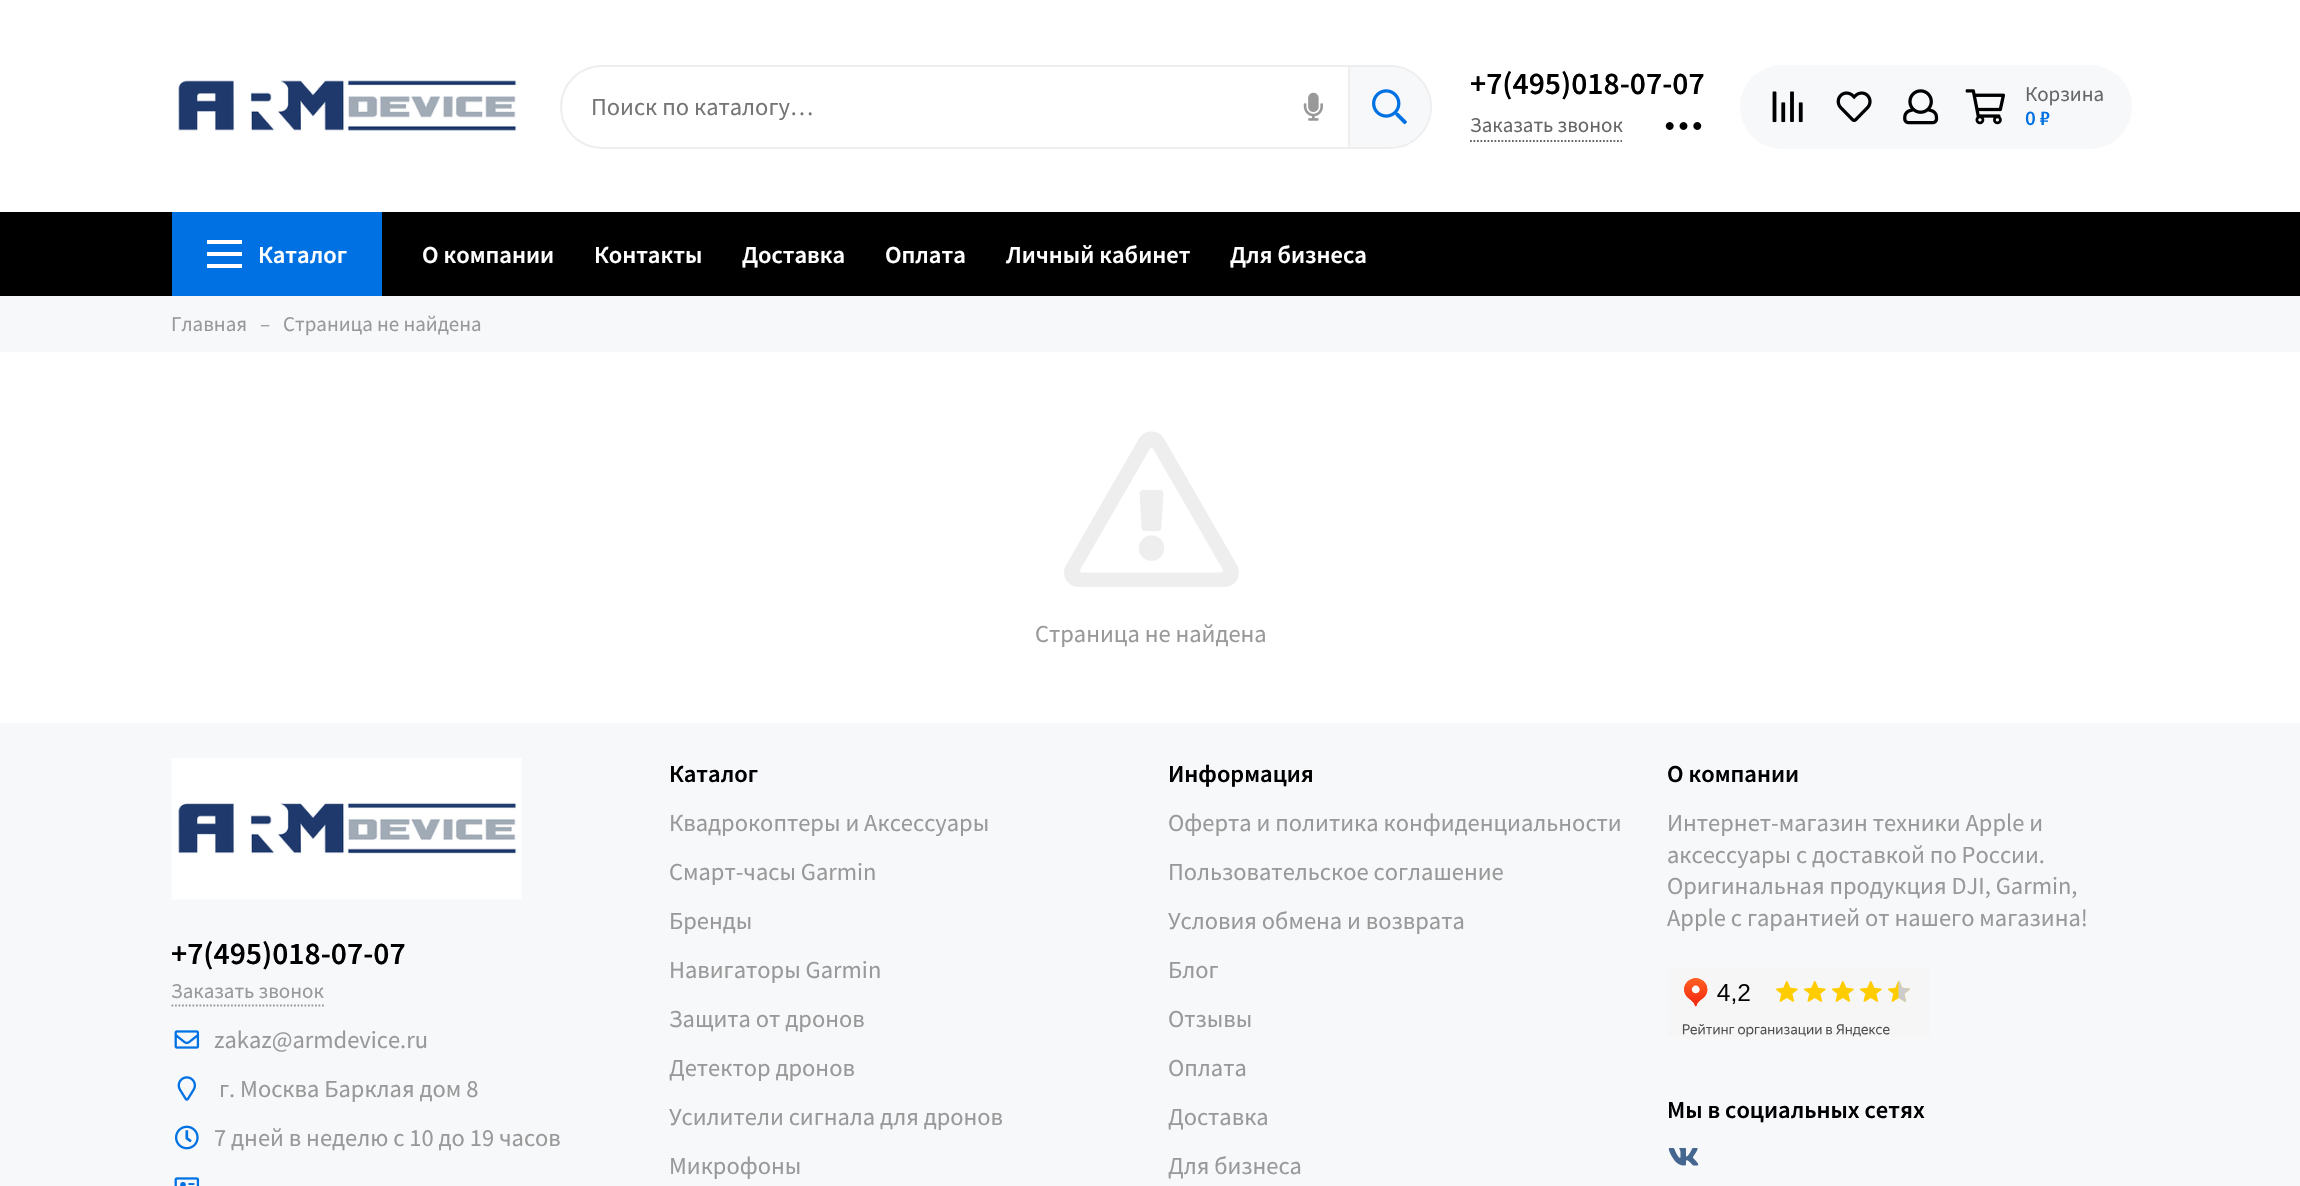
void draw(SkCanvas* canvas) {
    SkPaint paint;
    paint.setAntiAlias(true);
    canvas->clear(0xFFFFFFFF);
    canvas->drawImageRect(SkImages::DeferredFromEncodedData(SkData::MakeFromFileName("img1.png")), SkRect::MakeXYWH(178, 80, 339, 51), SkSamplingOptions());
    paint.setStyle(SkPaint::kStroke_Style);
    paint.setStrokeWidth(2);
    paint.setColor(0xFFEEEEEE);
    canvas->drawRoundRect(SkRect::MakeXYWH(561, 66, 870, 82), 41, 41, paint);
    SkFont font1(fontMgr->matchFamilyStyle("Source Sans Pro", SkFontStyle::Normal()), 24.5f);
    font1.setSubpixel(true);
    paint.setStyle(SkPaint::kFill_Style);
    paint.setColor(0xFF757575);
    canvas->drawString("Поиск по каталогу…", 591, 115, font1, paint);
    canvas->drawImageRect(SkImages::DeferredFromEncodedData(SkData::MakeFromFileName("img2.png")), SkRect::MakeXYWH(1303, 92, 20, 29), SkSamplingOptions());
    paint.setColor(0xFFF7F8FA);
    canvas->drawPath(SkPathBuilder().moveTo(1348, 67).lineTo(1390, 67).cubicTo(1412, 67, 1430, 85, 1430, 107).cubicTo(1430, 129, 1412, 147, 1390, 147).lineTo(1348, 147).close().detach(), paint);
    paint.setColor(0xFFEEEEEE);
    canvas->drawRect(SkRect::MakeXYWH(1348, 67, 2, 80), paint);
    canvas->drawImageRect(SkImages::DeferredFromEncodedData(SkData::MakeFromFileName("img3.png")), SkRect::MakeXYWH(1372, 89, 35, 36), SkSamplingOptions());
    SkFont font2(fontMgr->matchFamilyStyle("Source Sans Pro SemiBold", SkFontStyle(600, SkFontStyle::kNormal_Width, SkFontStyle::kUpright_Slant)), 31.5f);
    font2.setSubpixel(true);
    paint.setColor(0xFF000000);
    canvas->drawString("+7(495)018-07-07", 1470, 94, font2, paint);
    paint.setStyle(SkPaint::kStroke_Style);
    paint.setStrokeWidth(1.8f);
    paint.setColor(0xFF666666);
    paint.setPathEffect(SkDashPathEffect::Make({{1.75f, 1.75f}}, 0));
    canvas->drawPath(SkPathBuilder().moveTo(1470, 141).lineTo(1622, 141).detach(), paint);
    paint.setPathEffect(nullptr);
    SkFont font3(fontMgr->matchFamilyStyle("Source Sans Pro", SkFontStyle::Normal()), 21);
    font3.setSubpixel(true);
    paint.setStyle(SkPaint::kFill_Style);
    canvas->drawString("Заказать звонок", 1470, 132, font3, paint);
    canvas->drawImageRect(SkImages::DeferredFromEncodedData(SkData::MakeFromFileName("img4.png")), SkRect::MakeXYWH(1665, 122, 37, 8), SkSamplingOptions());
    paint.setColor(0xFFF7F8FA);
    canvas->drawRoundRect(SkRect::MakeXYWH(1740, 65, 392, 84), 42, 42, paint);
    canvas->drawImageRect(SkImages::DeferredFromEncodedData(SkData::MakeFromFileName("img5.png")), SkRect::MakeXYWH(1772, 91, 31, 32), SkSamplingOptions());
    canvas->drawImageRect(SkImages::DeferredFromEncodedData(SkData::MakeFromFileName("img6.png")), SkRect::MakeXYWH(1836, 91, 36, 31), SkSamplingOptions());
    canvas->drawImageRect(SkImages::DeferredFromEncodedData(SkData::MakeFromFileName("img7.png")), SkRect::MakeXYWH(1903, 89, 36, 36), SkSamplingOptions());
    canvas->drawImageRect(SkImages::DeferredFromEncodedData(SkData::MakeFromFileName("img8.png")), SkRect::MakeXYWH(1965, 89, 40, 36), SkSamplingOptions());
    paint.setColor(0xFF666666);
    canvas->drawString("Корзина", 2025, 101, font3, paint);
    SkFont font4(fontMgr->matchFamilyStyle("Source Sans Pro SemiBold", SkFontStyle(600, SkFontStyle::kNormal_Width, SkFontStyle::kUpright_Slant)), 21);
    font4.setSubpixel(true);
    paint.setColor(0xFF0071E3);
    canvas->drawString("0 ₽", 2025, 125, font4, paint);
    paint.setColor(0xFF000000);
    canvas->drawRect(SkRect::MakeXYWH(0, 212, 2300, 84), paint);
    paint.setColor(0xFF0071E3);
    canvas->drawRect(SkRect::MakeXYWH(172, 212, 210, 84), paint);
    paint.setColor(0xFFFFFFFF);
    canvas->drawRect(SkRect::MakeXYWH(207, 240, 35, 4), paint);
    canvas->drawRect(SkRect::MakeXYWH(207, 252, 35, 4), paint);
    canvas->drawRect(SkRect::MakeXYWH(207, 264, 35, 4), paint);
    SkFont font5(fontMgr->matchFamilyStyle("Source Sans Pro SemiBold", SkFontStyle(600, SkFontStyle::kNormal_Width, SkFontStyle::kUpright_Slant)), 24.5f);
    font5.setSubpixel(true);
    canvas->drawString("Каталог", 258, 263, font5, paint);
    canvas->drawString("О компании", 422, 263, font5, paint);
    canvas->drawString("Контакты", 594, 263, font5, paint);
    canvas->drawString("Доставка", 742, 263, font5, paint);
    canvas->drawString("Оплата", 885, 263, font5, paint);
    canvas->drawString("Личный кабинет", 1006, 263, font5, paint);
    canvas->drawString("Для бизнеса", 1230, 263, font5, paint);
    paint.setColor(0xFFF7F8FA);
    canvas->drawRect(SkRect::MakeXYWH(0, 296, 2300, 56), paint);
    paint.setColor(0xFF999999);
    canvas->drawString("Главная", 171, 331, font3, paint);
    canvas->drawString("–", 260, 331, font3, paint);
    canvas->drawString("Страница не найдена", 283, 331, font3, paint);
    canvas->drawImageRect(SkImages::DeferredFromEncodedData(SkData::MakeFromFileName("img9.png")), SkRect::MakeXYWH(1064, 431, 175, 156), SkSamplingOptions());
    canvas->drawString("Страница не найдена", 1035, 642, font1, paint);
    paint.setColor(0xFFF7F8FA);
    canvas->drawRect(SkRect::MakeXYWH(0, 723, 2300, 463), paint);
    canvas->drawImageRect(SkImages::DeferredFromEncodedData(SkData::MakeFromFileName("img10.png")), SkRect::MakeXYWH(171, 758, 351, 142), SkSamplingOptions());
    paint.setColor(0xFF000000);
    canvas->drawString("+7(495)018-07-07", 171, 964, font2, paint);
    paint.setStyle(SkPaint::kStroke_Style);
    paint.setColor(0xFF999999);
    paint.setPathEffect(SkDashPathEffect::Make({{1.75f, 1.75f}}, 0));
    canvas->drawPath(SkPathBuilder().moveTo(171.5f, 1005.5f).lineTo(324, 1005.5f).detach(), paint);
    paint.setPathEffect(nullptr);
    paint.setStyle(SkPaint::kFill_Style);
    canvas->drawString("Заказать звонок", 171, 998, font3, paint);
    canvas->drawImageRect(SkImages::DeferredFromEncodedData(SkData::MakeFromFileName("img11.png")), SkRect::MakeXYWH(174, 1030, 26, 19), SkSamplingOptions());
    canvas->drawString("zakaz@armdeviсe.ru", 214, 1048, font1, paint);
    canvas->drawImageRect(SkImages::DeferredFromEncodedData(SkData::MakeFromFileName("img12.png")), SkRect::MakeXYWH(177, 1076, 19, 25), SkSamplingOptions());
    canvas->drawString("г. Москва Барклая дом 8", 219, 1097, font1, paint);
    canvas->drawImageRect(SkImages::DeferredFromEncodedData(SkData::MakeFromFileName("img13.png")), SkRect::MakeXYWH(174, 1125, 25, 25), SkSamplingOptions());
    canvas->drawString("7 дней в неделю с 10 до 19 часов", 214, 1146, font1, paint);
    canvas->drawImageRect(SkImages::DeferredFromEncodedData(SkData::MakeFromFileName("img14.png")), SkRect::MakeXYWH(174, 1177, 26, 9), SkSamplingOptions());
    paint.setColor(0xFF000000);
    canvas->drawString("Каталог", 669, 782, font5, paint);
    paint.setColor(0xFF999999);
    canvas->drawString("Квадрокоптеры и Аксессуары", 669, 831, font1, paint);
    canvas->drawString("Смарт-часы Garmin", 669, 880, font1, paint);
    canvas->drawString("Бренды", 669, 929, font1, paint);
    canvas->drawString("Навигаторы Garmin", 669, 978, font1, paint);
    canvas->drawString("Защита от дронов", 669, 1027, font1, paint);
    canvas->drawString("Детектор дронов", 669, 1076, font1, paint);
    canvas->drawString("Усилители сигнала для дронов", 669, 1125, font1, paint);
    canvas->drawString("Микрофоны", 669, 1174, font1, paint);
    paint.setColor(0xFF000000);
    canvas->drawString("Информация", 1168, 782, font5, paint);
    paint.setColor(0xFF999999);
    canvas->drawString("Оферта и политика конфиденциальности", 1168, 831, font1, paint);
    canvas->drawString("Пользовательское соглашение", 1168, 880, font1, paint);
    canvas->drawString("Условия обмена и возврата", 1168, 929, font1, paint);
    canvas->drawString("Блог", 1168, 978, font1, paint);
    canvas->drawString("Отзывы", 1168, 1027, font1, paint);
    canvas->drawString("Оплата", 1168, 1076, font1, paint);
    canvas->drawString("Доставка", 1168, 1125, font1, paint);
    canvas->drawString("Для бизнеса", 1168, 1174, font1, paint);
    paint.setColor(0xFF000000);
    canvas->drawString("О компании", 1667, 782, font5, paint);
    paint.setColor(0xFF999999);
    canvas->drawString("Интернет-магазин техники Apple и", 1667, 831, font1, paint);
    canvas->drawString("аксессуары с доставкой по России.", 1667, 863, font1, paint);
    canvas->drawString("Оригинальная продукция DJI, Garmin,", 1667, 894, font1, paint);
    canvas->drawString("Apple с гарантией от нашего магазина!", 1667, 926, font1, paint);
    canvas->drawImageRect(SkImages::DeferredFromEncodedData(SkData::MakeFromFileName("img15.png")), SkRect::MakeXYWH(1668, 969, 262, 68), SkSamplingOptions());
    paint.setColor(0xFF000000);
    canvas->drawString("Мы в социальных сетях", 1667, 1118, font5, paint);
    canvas->drawImageRect(SkImages::DeferredFromEncodedData(SkData::MakeFromFileName("img16.png")), SkRect::MakeXYWH(1668, 1148, 31, 18), SkSamplingOptions());
}
